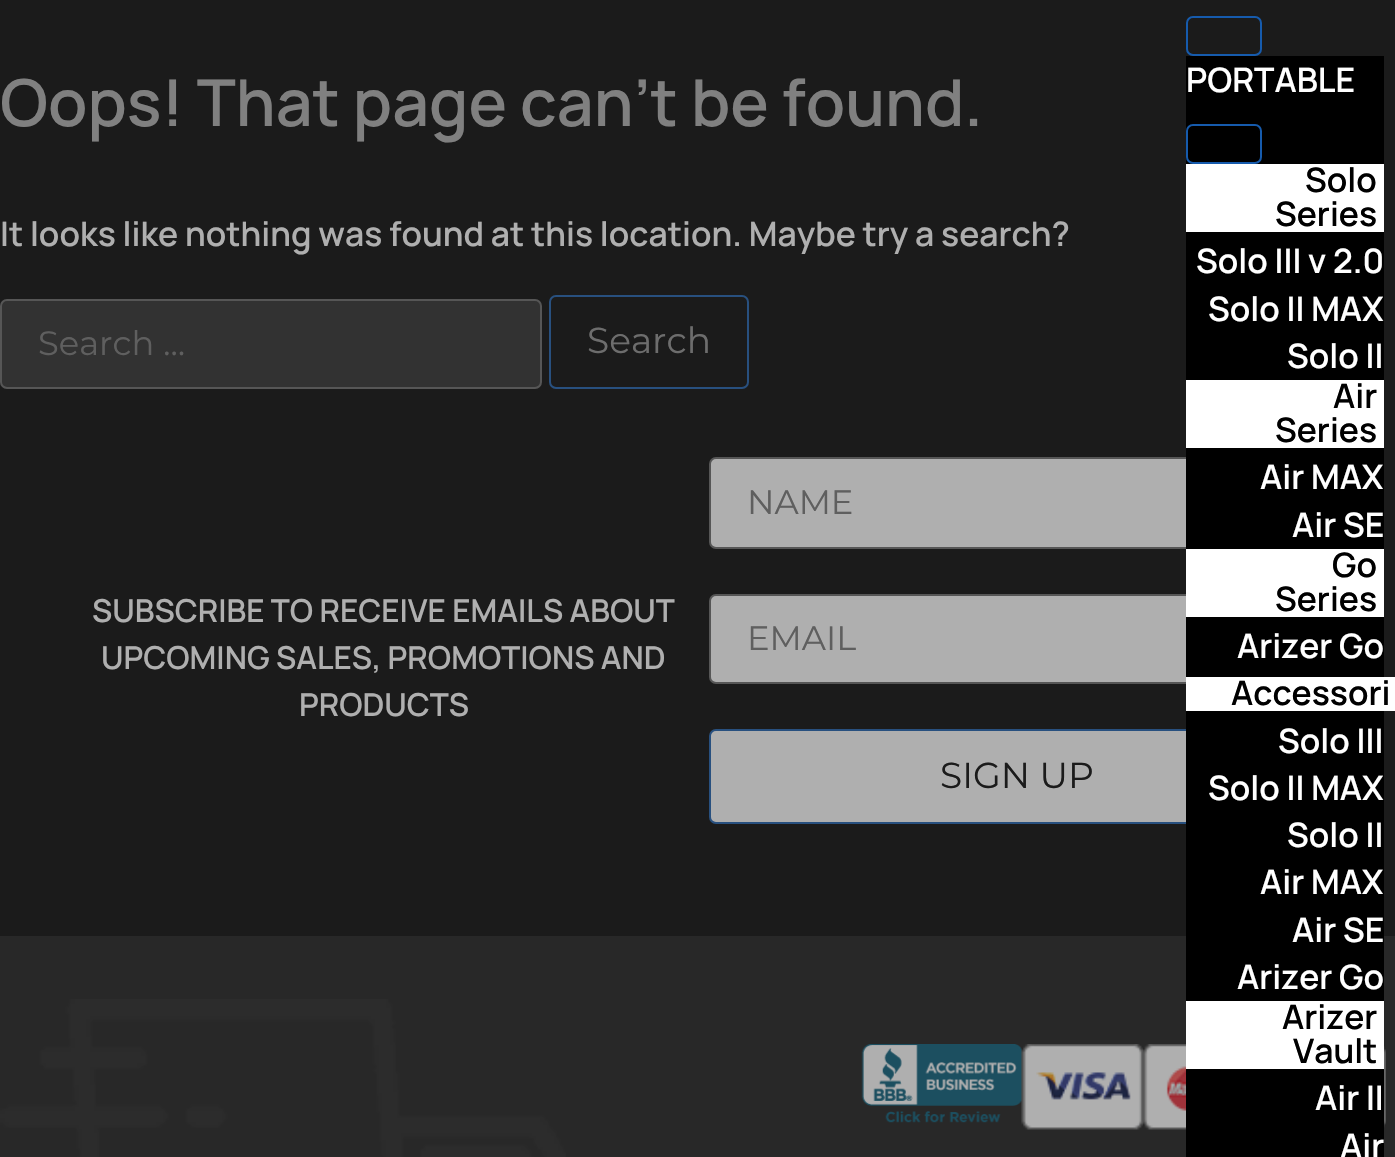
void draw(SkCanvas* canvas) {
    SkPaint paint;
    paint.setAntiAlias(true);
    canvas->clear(0xFF1B1B1B);
    SkFont font1(fontMgr->matchFamilyStyle("Manrope", SkFontStyle(200, SkFontStyle::kNormal_Width, SkFontStyle::kUpright_Slant)), 64.75f);
    font1.setSubpixel(true);
    paint.setColor(0xFF808080);
    canvas->drawString("Oops! That page can’t be found.", 0, 126, font1, paint);
    SkFont font2(fontMgr->matchFamilyStyle("Manrope", SkFontStyle(200, SkFontStyle::kNormal_Width, SkFontStyle::kUpright_Slant)), 33.75f);
    font2.setSubpixel(true);
    paint.setColor(0xFFAFAFAF);
    canvas->drawString("It looks like nothing was found at this location. Maybe try a search?", 0, 246, font2, paint);
    paint.setColor(0xFF323232);
    canvas->drawRoundRect(SkRect::MakeXYWH(1, 300, 540, 88), 6, 6, paint);
    paint.setStyle(SkPaint::kStroke_Style);
    paint.setStrokeWidth(2);
    paint.setColor(0xFF565656);
    canvas->drawRoundRect(SkRect::MakeXYWH(1, 300, 540, 88), 6, 6, paint);
    SkFont font3(fontMgr->matchFamilyStyle("Montserrat", SkFontStyle::Normal()), 33.75f);
    font3.setSubpixel(true);
    paint.setStyle(SkPaint::kFill_Style);
    paint.setColor(0xFF5F5F5F);
    canvas->drawString("Search …", 38, 355, font3, paint);
    paint.setStyle(SkPaint::kStroke_Style);
    paint.setColor(0xFF28507F);
    canvas->drawRoundRect(SkRect::MakeXYWH(550, 296, 198, 92), 6, 6, paint);
    SkFont font4(fontMgr->matchFamilyStyle("Montserrat", SkFontStyle::Normal()), 36);
    font4.setSubpixel(true);
    paint.setStyle(SkPaint::kFill_Style);
    paint.setColor(0xFF6D6D6D);
    canvas->drawString("Search", 587, 353, font4, paint);
    paint.setStyle(SkPaint::kStroke_Style);
    paint.setColor(0xFF165BAD);
    canvas->drawRoundRect(SkRect::MakeXYWH(1187, 17, 74, 38), 6, 6, paint);
    paint.setStyle(SkPaint::kFill_Style);
    paint.setColor(0xFFAFAFAF);
    canvas->drawRoundRect(SkRect::MakeXYWH(710, 458, 614, 90), 6, 6, paint);
    paint.setStyle(SkPaint::kStroke_Style);
    paint.setColor(0xFF565656);
    canvas->drawRoundRect(SkRect::MakeXYWH(710, 458, 614, 90), 6, 6, paint);
    paint.setStyle(SkPaint::kFill_Style);
    paint.setColor(0xFFAFAFAF);
    canvas->drawRoundRect(SkRect::MakeXYWH(710, 595, 614, 88), 6, 6, paint);
    paint.setStyle(SkPaint::kStroke_Style);
    paint.setColor(0xFF565656);
    canvas->drawRoundRect(SkRect::MakeXYWH(710, 595, 614, 88), 6, 6, paint);
    paint.setStyle(SkPaint::kFill_Style);
    paint.setColor(0xFFAFAFAF);
    canvas->drawRoundRect(SkRect::MakeXYWH(710, 730, 614, 93), 6, 6, paint);
    paint.setStyle(SkPaint::kStroke_Style);
    paint.setColor(0xFF28507F);
    canvas->drawRoundRect(SkRect::MakeXYWH(710, 730, 614, 93), 6, 6, paint);
    paint.setStyle(SkPaint::kFill_Style);
    paint.setColor(0xFF282828);
    canvas->drawRect(SkRect::MakeXYWH(0, 936, 1395, 221), paint);
    paint.setColor(0xFF000000);
    canvas->drawRect(SkRect::MakeXYWH(1186, 56, 198, 1101), paint);
    paint.setColor(0xFFFFFFFF);
    canvas->drawString("PORTABLE", 1186, 92, font2, paint);
    paint.setStyle(SkPaint::kStroke_Style);
    paint.setColor(0xFF165BAD);
    canvas->drawRoundRect(SkRect::MakeXYWH(1187, 125, 74, 38), 6, 6, paint);
    paint.setStyle(SkPaint::kFill_Style);
    paint.setColor(0xFFFFFFFF);
    canvas->drawRect(SkRect::MakeXYWH(1186, 164, 198, 68), paint);
    paint.setColor(0xFF000000);
    canvas->drawString("Solo", 1305, 192, font2, paint);
    canvas->drawString("Series", 1275, 226, font2, paint);
    paint.setColor(0xFFFFFFFF);
    canvas->drawString("Solo III v 2.0", 1196, 273, font2, paint);
    canvas->drawString("Solo II MAX", 1208, 321, font2, paint);
    canvas->drawString("Solo II", 1287, 368, font2, paint);
    canvas->drawRect(SkRect::MakeXYWH(1186, 380, 198, 68), paint);
    paint.setColor(0xFF000000);
    canvas->drawString("Air", 1333, 408, font2, paint);
    canvas->drawString("Series", 1275, 442, font2, paint);
    paint.setColor(0xFFFFFFFF);
    canvas->drawString("Air MAX", 1260, 489, font2, paint);
    canvas->drawString("Air SE", 1292, 537, font2, paint);
    canvas->drawRect(SkRect::MakeXYWH(1186, 549, 198, 68), paint);
    paint.setColor(0xFF000000);
    canvas->drawString("Go", 1332, 577, font2, paint);
    canvas->drawString("Series", 1275, 611, font2, paint);
    paint.setColor(0xFFFFFFFF);
    canvas->drawString("Arizer Go", 1237, 658, font2, paint);
    canvas->drawRect(SkRect::MakeXYWH(1186, 677, 209, 34), paint);
    paint.setColor(0xFF000000);
    canvas->drawString("Accessori", 1231, 705, font2, paint);
    paint.setColor(0xFFFFFFFF);
    canvas->drawString("Solo III", 1278, 753, font2, paint);
    canvas->drawString("Solo II MAX", 1208, 800, font2, paint);
    canvas->drawString("Solo II", 1287, 847, font2, paint);
    canvas->drawString("Air MAX", 1260, 894, font2, paint);
    canvas->drawString("Air SE", 1292, 942, font2, paint);
    canvas->drawString("Arizer Go", 1237, 989, font2, paint);
    canvas->drawRect(SkRect::MakeXYWH(1186, 1001, 198, 68), paint);
    paint.setColor(0xFF000000);
    canvas->drawString("Arizer", 1282, 1029, font2, paint);
    canvas->drawString("Vault", 1293, 1063, font2, paint);
    paint.setColor(0xFFFFFFFF);
    canvas->drawString("Air II", 1315, 1110, font2, paint);
    canvas->drawString("Air", 1340, 1158, font2, paint);
    SkFont font5(fontMgr->matchFamilyStyle("Manrope", SkFontStyle(200, SkFontStyle::kNormal_Width, SkFontStyle::kUpright_Slant)), 31.5f);
    font5.setSubpixel(true);
    paint.setColor(0xFFAFAFAF);
    canvas->drawString("SUBSCRIBE TO RECEIVE EMAILS ABOUT", 92, 622, font5, paint);
    canvas->drawString("UPCOMING SALES, PROMOTIONS AND", 101, 669, font5, paint);
    canvas->drawString("PRODUCTS", 299, 716, font5, paint);
    paint.setColor(0xFF5F5F5F);
    canvas->drawString("NAME", 747, 514, font3, paint);
    canvas->drawString("EMAIL", 747, 650, font3, paint);
    paint.setColor(0xFF1B1B1B);
    canvas->drawString("SIGN UP", 940, 788, font4, paint);
    canvas->drawImageRect(SkImages::DeferredFromEncodedData(SkData::MakeFromFileName("img1.png")), SkRect::MakeXYWH(0, 999, 566, 158), SkSamplingOptions());
    canvas->drawImageRect(SkImages::DeferredFromEncodedData(SkData::MakeFromFileName("img2.png")), SkRect::MakeXYWH(861, 1044, 161, 79), SkSamplingOptions());
    canvas->drawImageRect(SkImages::DeferredFromEncodedData(SkData::MakeFromFileName("img3.png")), SkRect::MakeXYWH(1021, 1044, 122, 86), SkSamplingOptions());
    canvas->drawImageRect(SkImages::DeferredFromEncodedData(SkData::MakeFromFileName("img4.png")), SkRect::MakeXYWH(1143, 1044, 43, 86), SkSamplingOptions());
    canvas->drawImageRect(SkImages::DeferredFromEncodedData(SkData::MakeFromFileName("img5.png")), SkRect::MakeXYWH(1384, 1046, 2, 82), SkSamplingOptions());
}
